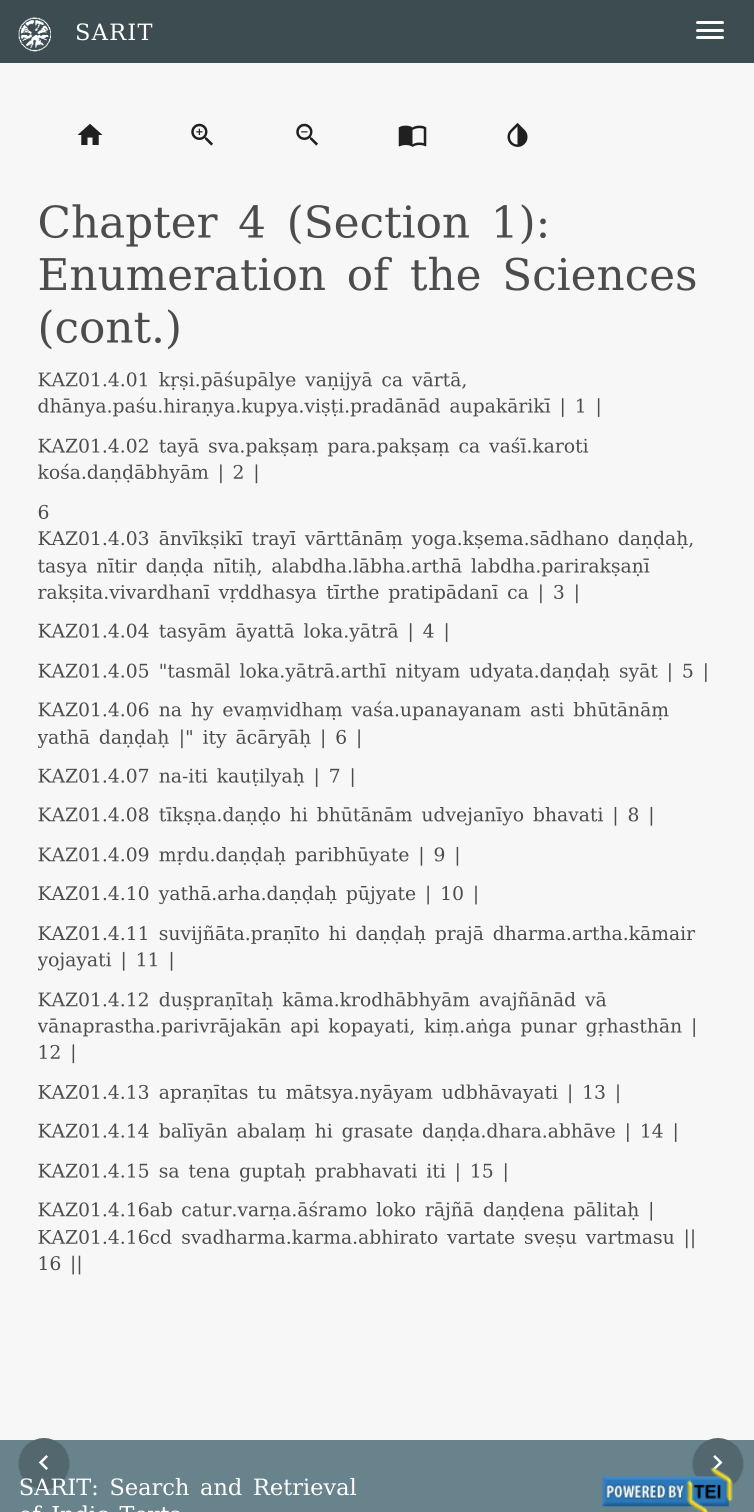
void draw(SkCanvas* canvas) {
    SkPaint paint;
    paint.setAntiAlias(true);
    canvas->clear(0xFFF7F7F7);
    paint.setColor(0xFF3C4C50);
    canvas->drawRect(SkRect::MakeXYWH(0, 0, 754, 63), paint);
    canvas->drawImageRect(SkImages::DeferredFromEncodedData(SkData::MakeFromFileName("img1.png")), SkRect::MakeXYWH(18, 17, 33, 35), SkSamplingOptions());
    canvas->drawImageRect(SkImages::DeferredFromEncodedData(SkData::MakeFromFileName("img2.png")), SkRect::MakeXYWH(76, 23, 77, 18), SkSamplingOptions());
    paint.setColor(0xFFFFFFFF);
    canvas->drawRoundRect(SkRect::MakeXYWH(696, 21, 28, 3), 1.5f, 1.5f, paint);
    canvas->drawRoundRect(SkRect::MakeXYWH(696, 29, 28, 3), 1.5f, 1.5f, paint);
    canvas->drawRoundRect(SkRect::MakeXYWH(696, 36, 28, 3), 1.5f, 1.5f, paint);
    canvas->drawImageRect(SkImages::DeferredFromEncodedData(SkData::MakeFromFileName("img3.png")), SkRect::MakeXYWH(77, 123, 26, 22), SkSamplingOptions());
    canvas->drawImageRect(SkImages::DeferredFromEncodedData(SkData::MakeFromFileName("img4.png")), SkRect::MakeXYWH(191, 123, 22, 23), SkSamplingOptions());
    canvas->drawImageRect(SkImages::DeferredFromEncodedData(SkData::MakeFromFileName("img5.png")), SkRect::MakeXYWH(296, 123, 22, 23), SkSamplingOptions());
    canvas->drawImageRect(SkImages::DeferredFromEncodedData(SkData::MakeFromFileName("img6.png")), SkRect::MakeXYWH(398, 125, 29, 22), SkSamplingOptions());
    canvas->drawImageRect(SkImages::DeferredFromEncodedData(SkData::MakeFromFileName("img7.png")), SkRect::MakeXYWH(507, 122, 21, 25), SkSamplingOptions());
    canvas->drawImageRect(SkImages::DeferredFromEncodedData(SkData::MakeFromFileName("img8.png")), SkRect::MakeXYWH(39, 204, 507, 43), SkSamplingOptions());
    canvas->drawImageRect(SkImages::DeferredFromEncodedData(SkData::MakeFromFileName("img9.png")), SkRect::MakeXYWH(39, 256, 657, 35), SkSamplingOptions());
    canvas->drawImageRect(SkImages::DeferredFromEncodedData(SkData::MakeFromFileName("img10.png")), SkRect::MakeXYWH(40, 309, 139, 41), SkSamplingOptions());
    canvas->drawImageRect(SkImages::DeferredFromEncodedData(SkData::MakeFromFileName("img11.png")), SkRect::MakeXYWH(38, 372, 109, 15), SkSamplingOptions());
    canvas->drawImageRect(SkImages::DeferredFromEncodedData(SkData::MakeFromFileName("img12.png")), SkRect::MakeXYWH(159, 371, 307, 20), SkSamplingOptions());
    canvas->drawImageRect(SkImages::DeferredFromEncodedData(SkData::MakeFromFileName("img13.png")), SkRect::MakeXYWH(38, 397, 562, 20), SkSamplingOptions());
    canvas->drawImageRect(SkImages::DeferredFromEncodedData(SkData::MakeFromFileName("img14.png")), SkRect::MakeXYWH(38, 438, 110, 15), SkSamplingOptions());
    canvas->drawImageRect(SkImages::DeferredFromEncodedData(SkData::MakeFromFileName("img15.png")), SkRect::MakeXYWH(159, 437, 430, 20), SkSamplingOptions());
    canvas->drawImageRect(SkImages::DeferredFromEncodedData(SkData::MakeFromFileName("img16.png")), SkRect::MakeXYWH(38, 463, 184, 21), SkSamplingOptions());
    canvas->drawImageRect(SkImages::DeferredFromEncodedData(SkData::MakeFromFileName("img17.png")), SkRect::MakeXYWH(233, 464, 25, 20), SkSamplingOptions());
    canvas->drawImageRect(SkImages::DeferredFromEncodedData(SkData::MakeFromFileName("img18.png")), SkRect::MakeXYWH(38, 504, 11, 15), SkSamplingOptions());
    canvas->drawImageRect(SkImages::DeferredFromEncodedData(SkData::MakeFromFileName("img19.png")), SkRect::MakeXYWH(38, 531, 111, 15), SkSamplingOptions());
    canvas->drawImageRect(SkImages::DeferredFromEncodedData(SkData::MakeFromFileName("img20.png")), SkRect::MakeXYWH(159, 530, 534, 20), SkSamplingOptions());
    canvas->drawImageRect(SkImages::DeferredFromEncodedData(SkData::MakeFromFileName("img21.png")), SkRect::MakeXYWH(38, 559, 50, 18), SkSamplingOptions());
    canvas->drawImageRect(SkImages::DeferredFromEncodedData(SkData::MakeFromFileName("img22.png")), SkRect::MakeXYWH(96, 558, 554, 19), SkSamplingOptions());
    canvas->drawImageRect(SkImages::DeferredFromEncodedData(SkData::MakeFromFileName("img23.png")), SkRect::MakeXYWH(38, 584, 279, 19), SkSamplingOptions());
    canvas->drawImageRect(SkImages::DeferredFromEncodedData(SkData::MakeFromFileName("img24.png")), SkRect::MakeXYWH(326, 584, 252, 20), SkSamplingOptions());
    canvas->drawImageRect(SkImages::DeferredFromEncodedData(SkData::MakeFromFileName("img25.png")), SkRect::MakeXYWH(38, 623, 111, 15), SkSamplingOptions());
    canvas->drawImageRect(SkImages::DeferredFromEncodedData(SkData::MakeFromFileName("img26.png")), SkRect::MakeXYWH(159, 623, 289, 19), SkSamplingOptions());
    canvas->drawImageRect(SkImages::DeferredFromEncodedData(SkData::MakeFromFileName("img27.png")), SkRect::MakeXYWH(38, 663, 111, 15), SkSamplingOptions());
    canvas->drawImageRect(SkImages::DeferredFromEncodedData(SkData::MakeFromFileName("img28.png")), SkRect::MakeXYWH(160, 663, 547, 19), SkSamplingOptions());
    canvas->drawImageRect(SkImages::DeferredFromEncodedData(SkData::MakeFromFileName("img29.png")), SkRect::MakeXYWH(38, 702, 111, 15), SkSamplingOptions());
    canvas->drawImageRect(SkImages::DeferredFromEncodedData(SkData::MakeFromFileName("img30.png")), SkRect::MakeXYWH(159, 701, 510, 20), SkSamplingOptions());
    canvas->drawImageRect(SkImages::DeferredFromEncodedData(SkData::MakeFromFileName("img31.png")), SkRect::MakeXYWH(38, 729, 131, 19), SkSamplingOptions());
    canvas->drawImageRect(SkImages::DeferredFromEncodedData(SkData::MakeFromFileName("img32.png")), SkRect::MakeXYWH(181, 729, 179, 20), SkSamplingOptions());
    canvas->drawImageRect(SkImages::DeferredFromEncodedData(SkData::MakeFromFileName("img33.png")), SkRect::MakeXYWH(38, 768, 111, 15), SkSamplingOptions());
    canvas->drawImageRect(SkImages::DeferredFromEncodedData(SkData::MakeFromFileName("img34.png")), SkRect::MakeXYWH(159, 768, 195, 19), SkSamplingOptions());
    canvas->drawImageRect(SkImages::DeferredFromEncodedData(SkData::MakeFromFileName("img35.png")), SkRect::MakeXYWH(38, 807, 111, 15), SkSamplingOptions());
    canvas->drawImageRect(SkImages::DeferredFromEncodedData(SkData::MakeFromFileName("img36.png")), SkRect::MakeXYWH(159, 806, 494, 20), SkSamplingOptions());
    canvas->drawImageRect(SkImages::DeferredFromEncodedData(SkData::MakeFromFileName("img37.png")), SkRect::MakeXYWH(38, 847, 111, 15), SkSamplingOptions());
    canvas->drawImageRect(SkImages::DeferredFromEncodedData(SkData::MakeFromFileName("img38.png")), SkRect::MakeXYWH(159, 846, 300, 20), SkSamplingOptions());
    canvas->drawImageRect(SkImages::DeferredFromEncodedData(SkData::MakeFromFileName("img39.png")), SkRect::MakeXYWH(38, 886, 111, 15), SkSamplingOptions());
    canvas->drawImageRect(SkImages::DeferredFromEncodedData(SkData::MakeFromFileName("img40.png")), SkRect::MakeXYWH(158, 885, 319, 20), SkSamplingOptions());
    canvas->drawImageRect(SkImages::DeferredFromEncodedData(SkData::MakeFromFileName("img41.png")), SkRect::MakeXYWH(38, 926, 109, 15), SkSamplingOptions());
    canvas->drawImageRect(SkImages::DeferredFromEncodedData(SkData::MakeFromFileName("img42.png")), SkRect::MakeXYWH(159, 925, 537, 20), SkSamplingOptions());
    canvas->drawImageRect(SkImages::DeferredFromEncodedData(SkData::MakeFromFileName("img43.png")), SkRect::MakeXYWH(38, 951, 135, 20), SkSamplingOptions());
    canvas->drawImageRect(SkImages::DeferredFromEncodedData(SkData::MakeFromFileName("img44.png")), SkRect::MakeXYWH(38, 992, 110, 15), SkSamplingOptions());
    canvas->drawImageRect(SkImages::DeferredFromEncodedData(SkData::MakeFromFileName("img45.png")), SkRect::MakeXYWH(159, 991, 448, 20), SkSamplingOptions());
    canvas->drawImageRect(SkImages::DeferredFromEncodedData(SkData::MakeFromFileName("img46.png")), SkRect::MakeXYWH(38, 1018, 657, 19), SkSamplingOptions());
    canvas->drawImageRect(SkImages::DeferredFromEncodedData(SkData::MakeFromFileName("img47.png")), SkRect::MakeXYWH(39, 1044, 36, 20), SkSamplingOptions());
    canvas->drawImageRect(SkImages::DeferredFromEncodedData(SkData::MakeFromFileName("img48.png")), SkRect::MakeXYWH(38, 1084, 111, 15), SkSamplingOptions());
    canvas->drawImageRect(SkImages::DeferredFromEncodedData(SkData::MakeFromFileName("img49.png")), SkRect::MakeXYWH(159, 1084, 460, 20), SkSamplingOptions());
    canvas->drawImageRect(SkImages::DeferredFromEncodedData(SkData::MakeFromFileName("img50.png")), SkRect::MakeXYWH(38, 1123, 111, 15), SkSamplingOptions());
    canvas->drawImageRect(SkImages::DeferredFromEncodedData(SkData::MakeFromFileName("img51.png")), SkRect::MakeXYWH(159, 1123, 518, 19), SkSamplingOptions());
    canvas->drawImageRect(SkImages::DeferredFromEncodedData(SkData::MakeFromFileName("img52.png")), SkRect::MakeXYWH(38, 1163, 111, 15), SkSamplingOptions());
    canvas->drawImageRect(SkImages::DeferredFromEncodedData(SkData::MakeFromFileName("img53.png")), SkRect::MakeXYWH(159, 1163, 348, 19), SkSamplingOptions());
    canvas->drawImageRect(SkImages::DeferredFromEncodedData(SkData::MakeFromFileName("img54.png")), SkRect::MakeXYWH(38, 1202, 134, 15), SkSamplingOptions());
    canvas->drawImageRect(SkImages::DeferredFromEncodedData(SkData::MakeFromFileName("img55.png")), SkRect::MakeXYWH(182, 1201, 471, 20), SkSamplingOptions());
    canvas->drawImageRect(SkImages::DeferredFromEncodedData(SkData::MakeFromFileName("img56.png")), SkRect::MakeXYWH(38, 1229, 134, 15), SkSamplingOptions());
    canvas->drawImageRect(SkImages::DeferredFromEncodedData(SkData::MakeFromFileName("img57.png")), SkRect::MakeXYWH(182, 1229, 512, 20), SkSamplingOptions());
    canvas->drawImageRect(SkImages::DeferredFromEncodedData(SkData::MakeFromFileName("img58.png")), SkRect::MakeXYWH(39, 1256, 22, 15), SkSamplingOptions());
    canvas->drawImageRect(SkImages::DeferredFromEncodedData(SkData::MakeFromFileName("img59.png")), SkRect::MakeXYWH(72, 1255, 9, 20), SkSamplingOptions());
    paint.setColor(0xFF68838B);
    canvas->drawRect(SkRect::MakeXYWH(0, 1440, 754, 72), paint);
    paint.setColor(0x3D000000);
    paint.setMaskFilter(SkMaskFilter::MakeBlur(kNormal_SkBlurStyle, 0.5f));
    canvas->drawRoundRect(SkRect::MakeXYWH(19, 1439, 50, 50), 25, 25, paint);
    paint.setMaskFilter(nullptr);
    paint.setColor(0x1F000000);
    paint.setMaskFilter(SkMaskFilter::MakeBlur(kNormal_SkBlurStyle, 1));
    canvas->drawRoundRect(SkRect::MakeXYWH(19, 1439, 50, 50), 25, 25, paint);
    paint.setMaskFilter(nullptr);
    paint.setColor(0xFF52686E);
    canvas->drawCircle(44, 1463, 25, paint);
    canvas->drawImageRect(SkImages::DeferredFromEncodedData(SkData::MakeFromFileName("img60.png")), SkRect::MakeXYWH(38, 1455, 10, 15), SkSamplingOptions());
    paint.setColor(0x3D000000);
    paint.setMaskFilter(SkMaskFilter::MakeBlur(kNormal_SkBlurStyle, 0.5f));
    canvas->drawRoundRect(SkRect::MakeXYWH(693, 1439, 50, 50), 25, 25, paint);
    paint.setMaskFilter(nullptr);
    paint.setColor(0x1F000000);
    paint.setMaskFilter(SkMaskFilter::MakeBlur(kNormal_SkBlurStyle, 1));
    canvas->drawRoundRect(SkRect::MakeXYWH(693, 1439, 50, 50), 25, 25, paint);
    paint.setMaskFilter(nullptr);
    paint.setColor(0xFF52686E);
    canvas->drawCircle(718, 1463, 25, paint);
    canvas->drawImageRect(SkImages::DeferredFromEncodedData(SkData::MakeFromFileName("img61.png")), SkRect::MakeXYWH(713, 1455, 10, 15), SkSamplingOptions());
    canvas->drawImageRect(SkImages::DeferredFromEncodedData(SkData::MakeFromFileName("img62.png")), SkRect::MakeXYWH(20, 1477, 337, 19), SkSamplingOptions());
    canvas->drawImageRect(SkImages::DeferredFromEncodedData(SkData::MakeFromFileName("img63.png")), SkRect::MakeXYWH(21, 1505, 159, 7), SkSamplingOptions());
    canvas->drawImageRect(SkImages::DeferredFromEncodedData(SkData::MakeFromFileName("img64.png")), SkRect::MakeXYWH(602, 1467, 131, 45), SkSamplingOptions());
}
